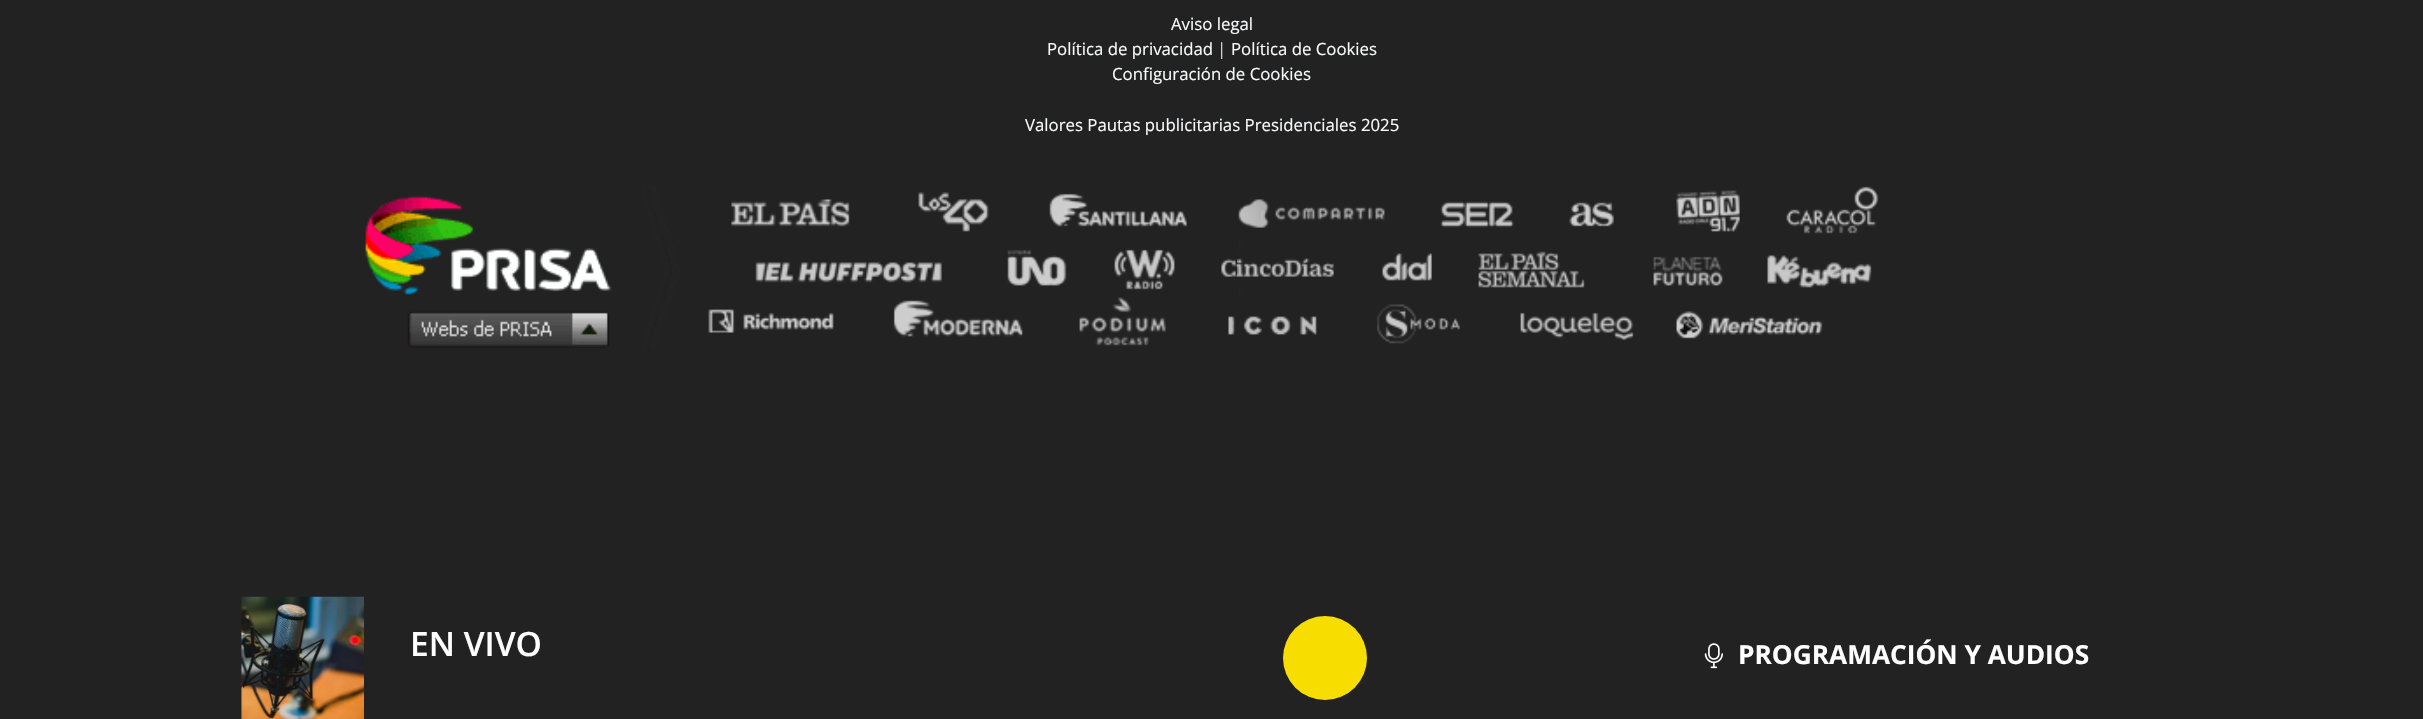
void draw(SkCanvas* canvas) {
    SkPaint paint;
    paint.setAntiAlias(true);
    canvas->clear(0xFF222222);
    SkFont font1(fontMgr->matchFamilyStyle("Open Sans", SkFontStyle::Normal()), 16.8f);
    font1.setSubpixel(true);
    paint.setColor(0xFFF8F9FA);
    canvas->drawString("Aviso legal", 1171, 30, font1, paint);
    canvas->drawString("Política de privacidad", 1047, 55, font1, paint);
    paint.setColor(0xFFD3D3D3);
    canvas->drawString("|", 1217, 55, font1, paint);
    paint.setColor(0xFFF8F9FA);
    canvas->drawString("Política de Cookies", 1231, 55, font1, paint);
    canvas->drawString("Configuración de Cookies", 1112, 80, font1, paint);
    canvas->drawString("Valores Pautas publicitarias Presidenciales 2025", 1025, 131, font1, paint);
    canvas->drawImageRect(SkImages::DeferredFromEncodedData(SkData::MakeFromFileName("img1.png")), SkRect::MakeXYWH(365, 186, 1514, 162), SkSamplingOptions());
    canvas->drawImageRect(SkImages::DeferredFromEncodedData(SkData::MakeFromFileName("img2.png")), SkRect::MakeXYWH(241, 596, 123, 123), SkSamplingOptions());
    SkFont font2(fontMgr->matchFamilyStyle("Open Sans", SkFontStyle(600, SkFontStyle::kNormal_Width, SkFontStyle::kUpright_Slant)), 33.5f);
    font2.setSubpixel(true);
    paint.setColor(0xFFFFFFFF);
    canvas->drawString("EN VIVO", 410, 656, font2, paint);
    paint.setColor(0xFFF8DE00);
    canvas->drawCircle(1325, 658, 42, paint);
    canvas->drawImageRect(SkImages::DeferredFromEncodedData(SkData::MakeFromFileName("img3.png")), SkRect::MakeXYWH(1704, 643, 19, 26), SkSamplingOptions());
    SkFont font3(fontMgr->matchFamilyStyle("Open Sans", SkFontStyle::Bold()), 26.25f);
    font3.setSubpixel(true);
    paint.setColor(0xFFFFFFFF);
    canvas->drawString("PROGRAMACIÓN Y AUDIOS", 1738, 664, font3, paint);
}
